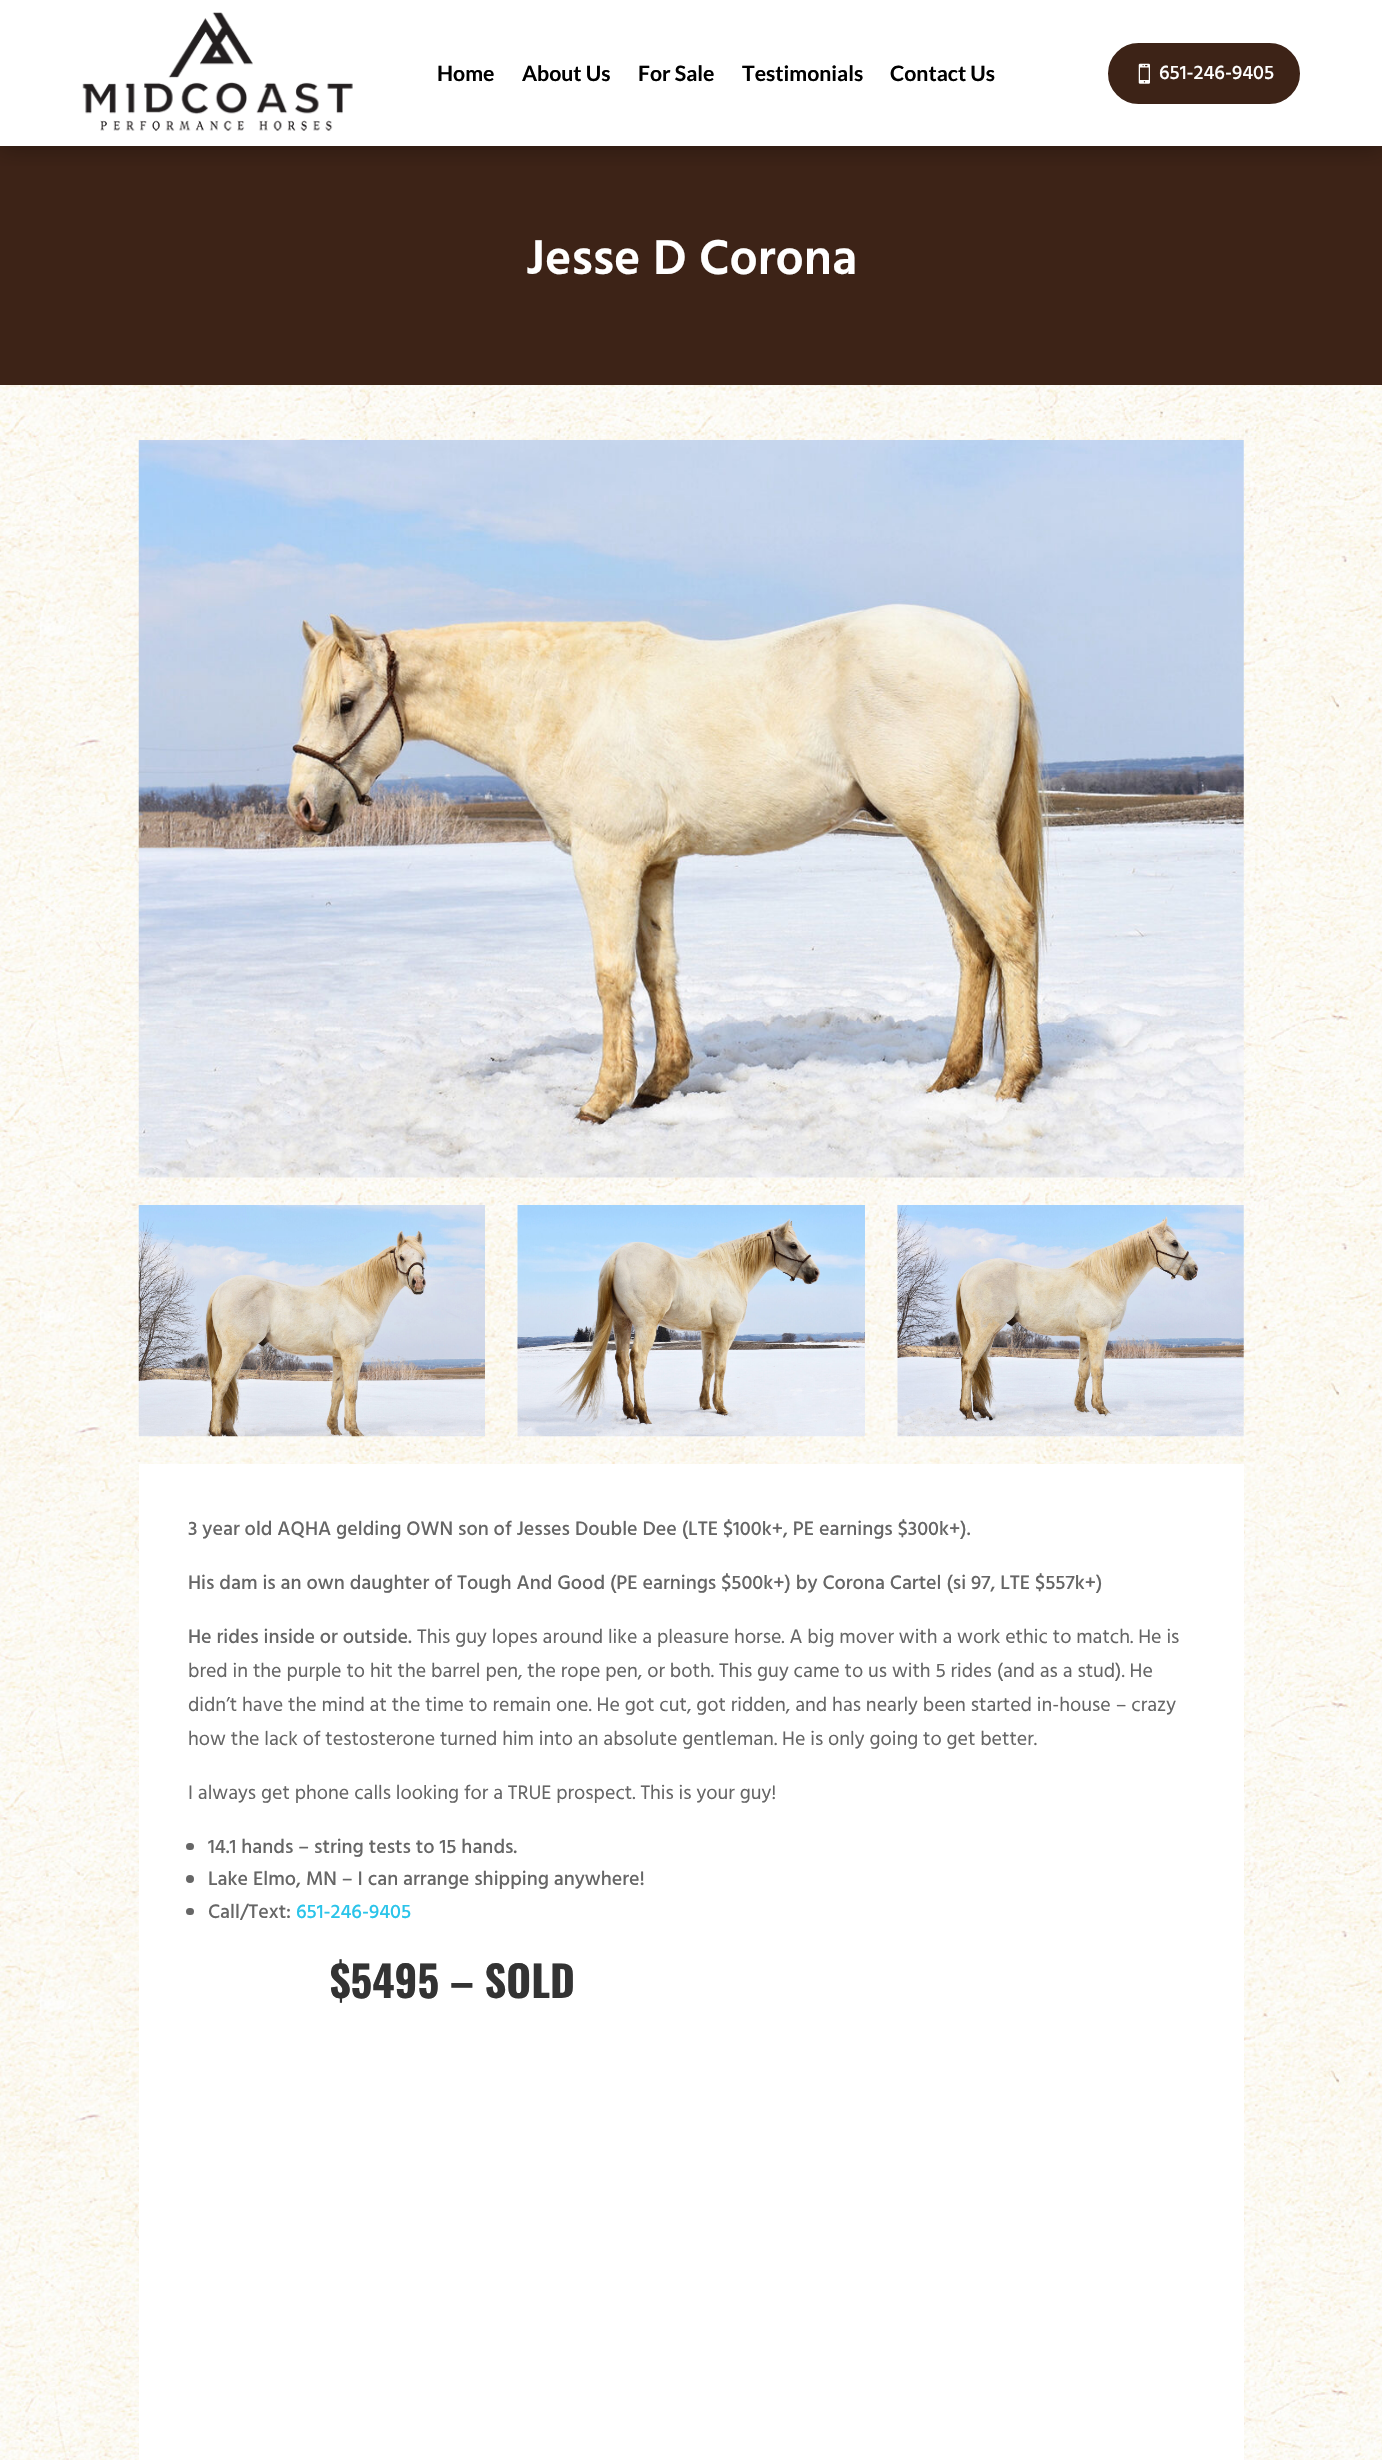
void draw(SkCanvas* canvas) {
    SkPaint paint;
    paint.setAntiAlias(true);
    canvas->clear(0xFFFFFFFF);
    paint.setColor(0xFF3D2317);
    canvas->drawRect(SkRect::MakeXYWH(0, 146, 1382, 239), paint);
    canvas->save();
    canvas->clipRect(SkRect::MakeXYWH(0, 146, 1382, 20));
    paint.setColor(0x4D000000);
    paint.setMaskFilter(SkMaskFilter::MakeBlur(kNormal_SkBlurStyle, 11));
    canvas->drawRect(SkRect::MakeXYWH(0, 3, 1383, 146), paint);
    paint.setMaskFilter(nullptr);
    canvas->restore();
    canvas->drawImageRect(SkImages::DeferredFromEncodedData(SkData::MakeFromFileName("img1.png")), SkRect::MakeXYWH(82, 12, 271, 119), SkSamplingOptions());
    SkFont font1(fontMgr->matchFamilyStyle("Lato", SkFontStyle::Bold()), 21.25f);
    font1.setSubpixel(true);
    paint.setColor(0xFF000000);
    canvas->drawString("Home", 437, 81, font1, paint);
    canvas->drawString("About Us", 522, 81, font1, paint);
    canvas->drawString("For Sale", 638, 81, font1, paint);
    canvas->drawString("Testimonials", 742, 81, font1, paint);
    canvas->drawString("Contact Us", 890, 81, font1, paint);
    paint.setColor(0xFF3D2317);
    canvas->drawRoundRect(SkRect::MakeXYWH(1109.5f, 44.5f, 189, 58), 29, 29, paint);
    paint.setStyle(SkPaint::kStroke_Style);
    paint.setStrokeWidth(3);
    canvas->drawRoundRect(SkRect::MakeXYWH(1109.5f, 44.5f, 189, 58), 29, 29, paint);
    canvas->drawImageRect(SkImages::DeferredFromEncodedData(SkData::MakeFromFileName("img2.png")), SkRect::MakeXYWH(1138, 63, 12, 21), SkSamplingOptions());
    SkFont font2(fontMgr->matchFamilyStyle("Hind", SkFontStyle(500, SkFontStyle::kNormal_Width, SkFontStyle::kUpright_Slant)), 20);
    font2.setSubpixel(true);
    paint.setStyle(SkPaint::kFill_Style);
    paint.setColor(0xFFFFFFFF);
    canvas->drawString("651-246-9405", 1159, 79, font2, paint);
    SkFont font3(fontMgr->matchFamilyStyle("Hind", SkFontStyle(600, SkFontStyle::kNormal_Width, SkFontStyle::kUpright_Slant)), 50);
    font3.setSubpixel(true);
    canvas->drawString("Jesse D Corona", 526, 274, font3, paint);
    canvas->drawImageRect(SkImages::DeferredFromEncodedData(SkData::MakeFromFileName("img3.png")), SkRect::MakeXYWH(0, 385, 1382, 2075), SkSamplingOptions());
    canvas->drawImageRect(SkImages::DeferredFromEncodedData(SkData::MakeFromFileName("img4.png")), SkRect::MakeXYWH(138, 440, 1106, 738), SkSamplingOptions());
    canvas->drawImageRect(SkImages::DeferredFromEncodedData(SkData::MakeFromFileName("img5.png")), SkRect::MakeXYWH(138, 1205, 347, 232), SkSamplingOptions());
    canvas->drawImageRect(SkImages::DeferredFromEncodedData(SkData::MakeFromFileName("img6.png")), SkRect::MakeXYWH(517, 1205, 348, 232), SkSamplingOptions());
    canvas->drawImageRect(SkImages::DeferredFromEncodedData(SkData::MakeFromFileName("img7.png")), SkRect::MakeXYWH(897, 1205, 347, 232), SkSamplingOptions());
    canvas->drawRect(SkRect::MakeXYWH(139, 1464, 1105, 996), paint);
    paint.setColor(0xFF666666);
    canvas->drawString("3 year old AQHA gelding OWN son of Jesses Double Dee (LTE $100k+, PE earnings $300k+).", 188, 1535, font2, paint);
    canvas->drawString("His dam is an own daughter of Tough And Good (PE earnings $500k+) by Corona Cartel (si 97, LTE $557k+)", 188, 1589, font2, paint);
    canvas->drawString("He rides inside or outside.", 188, 1643, font2, paint);
    SkFont font4(fontMgr->matchFamilyStyle("Hind", SkFontStyle::Normal()), 20);
    font4.setSubpixel(true);
    canvas->drawString("This guy lopes around like a pleasure horse. A big mover with a work ethic to match. He is", 417, 1643, font4, paint);
    canvas->drawString("bred in the purple to hit the barrel pen, the rope pen, or both. This guy came to us with 5 rides (and as a stud). He", 188, 1677, font4, paint);
    canvas->drawString("didn’t have the mind at the time to remain one. He got cut, got ridden, and has nearly been started in-house – crazy", 188, 1711, font4, paint);
    canvas->drawString("how the lack of testosterone turned him into an absolute gentleman. He is only going to get better.", 188, 1745, font4, paint);
    canvas->drawString("I always get phone calls looking for a TRUE prospect. This is your guy!", 188, 1799, font4, paint);
    canvas->drawRoundRect(SkRect::MakeXYWH(186, 1843, 8, 7), 3.5f, 3.5f, paint);
    canvas->drawString("14.1 hands – string tests to 15 hands.", 208, 1853, font2, paint);
    canvas->drawCircle(190, 1879, 4, paint);
    canvas->drawString("Lake Elmo, MN – I can arrange shipping anywhere!", 208, 1885, font2, paint);
    canvas->drawRoundRect(SkRect::MakeXYWH(186, 1908, 8, 7), 3.5f, 3.5f, paint);
    canvas->drawString("Call/Text:", 208, 1918, font2, paint);
    paint.setColor(0xFF2AC4EA);
    canvas->drawString("651-246-9405", 296, 1918, font2, paint);
    SkFont font5(fontMgr->matchFamilyStyle("Oswald", SkFontStyle::Bold()), 42.5f);
    font5.setSubpixel(true);
    paint.setColor(0xFF333333);
    canvas->drawString("$5495 – SOLD", 330, 1998, font5, paint);
}
